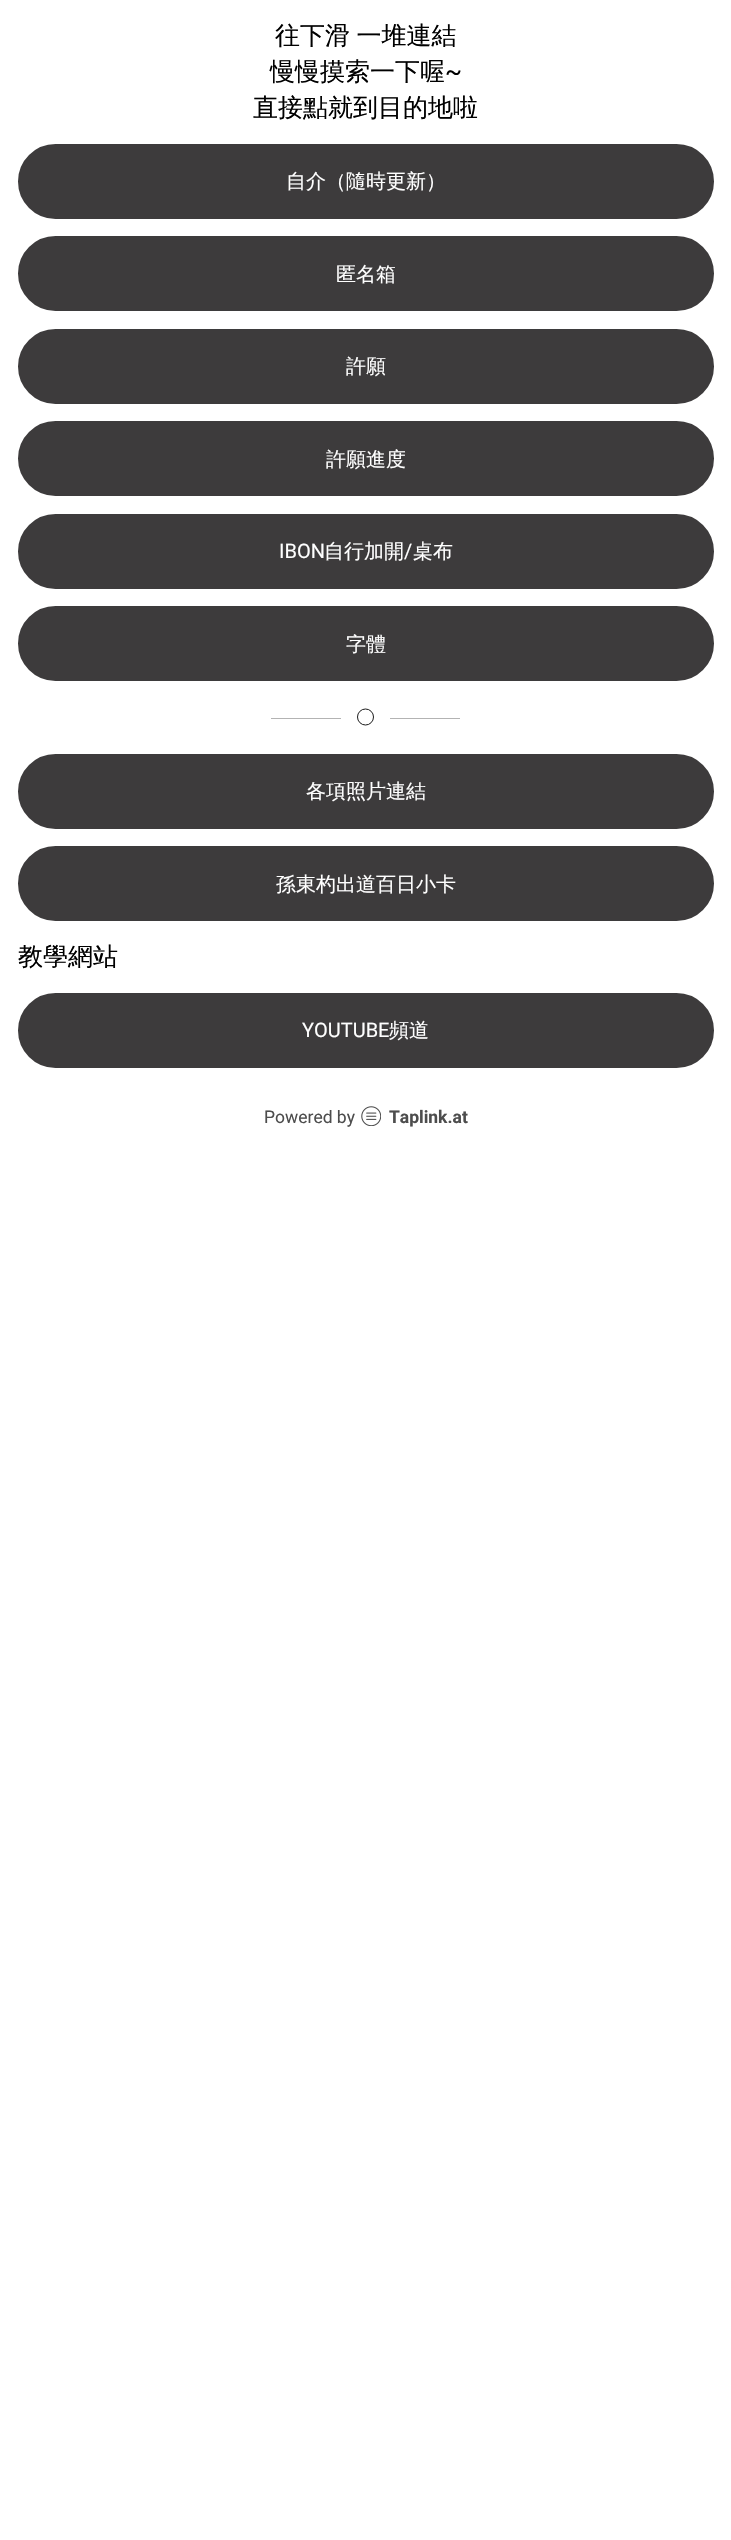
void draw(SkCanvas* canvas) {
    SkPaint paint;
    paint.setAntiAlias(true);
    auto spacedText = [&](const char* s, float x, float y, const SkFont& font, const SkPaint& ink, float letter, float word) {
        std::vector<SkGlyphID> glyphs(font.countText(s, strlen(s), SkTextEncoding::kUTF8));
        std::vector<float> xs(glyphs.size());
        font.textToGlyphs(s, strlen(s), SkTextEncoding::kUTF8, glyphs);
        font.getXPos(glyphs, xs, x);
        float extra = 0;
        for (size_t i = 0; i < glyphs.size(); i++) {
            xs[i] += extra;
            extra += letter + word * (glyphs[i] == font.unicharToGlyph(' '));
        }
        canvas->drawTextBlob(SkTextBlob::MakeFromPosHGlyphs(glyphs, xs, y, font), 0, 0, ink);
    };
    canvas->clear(0xFFFFFFFF);
    SkFont font1(fontMgr->matchFamilyStyle("WenQuanYi Zen Hei", SkFontStyle(500, SkFontStyle::kNormal_Width, SkFontStyle::kUpright_Slant)), 25);
    font1.setSubpixel(true);
    paint.setColor(0xFF000000);
    spacedText("往下滑 一堆連結", 275, 44, font1, paint, 0, -1);
    canvas->drawString("慢慢摸索一下喔", 270, 80, font1, paint);
    SkFont font2(fontMgr->matchFamilyStyle("Roboto", SkFontStyle::Normal()), 25);
    font2.setSubpixel(true);
    canvas->drawString("~", 445, 80, font2, paint);
    canvas->drawString("直接點就到目的地啦", 253, 116, font1, paint);
    paint.setColor(0xFF3D3B3C);
    canvas->drawRoundRect(SkRect::MakeXYWH(19.5f, 145.5f, 693, 72), 36, 36, paint);
    paint.setStyle(SkPaint::kStroke_Style);
    paint.setStrokeWidth(3);
    canvas->drawRoundRect(SkRect::MakeXYWH(19.5f, 145.5f, 693, 72), 36, 36, paint);
    SkFont font3(fontMgr->matchFamilyStyle("WenQuanYi Zen Hei", SkFontStyle(500, SkFontStyle::kNormal_Width, SkFontStyle::kUpright_Slant)), 20);
    font3.setSubpixel(true);
    paint.setStyle(SkPaint::kFill_Style);
    paint.setColor(0xFFFFFFFF);
    canvas->drawString("自介（隨時更新）", 286, 188, font3, paint);
    paint.setColor(0xFF3D3B3C);
    canvas->drawRoundRect(SkRect::MakeXYWH(19.5f, 237.5f, 693, 72), 36, 36, paint);
    paint.setStyle(SkPaint::kStroke_Style);
    canvas->drawRoundRect(SkRect::MakeXYWH(19.5f, 237.5f, 693, 72), 36, 36, paint);
    paint.setStyle(SkPaint::kFill_Style);
    paint.setColor(0xFFFFFFFF);
    canvas->drawString("匿名箱", 336, 281, font3, paint);
    paint.setColor(0xFF3D3B3C);
    canvas->drawRoundRect(SkRect::MakeXYWH(19.5f, 330.5f, 693, 72), 36, 36, paint);
    paint.setStyle(SkPaint::kStroke_Style);
    canvas->drawRoundRect(SkRect::MakeXYWH(19.5f, 330.5f, 693, 72), 36, 36, paint);
    paint.setStyle(SkPaint::kFill_Style);
    paint.setColor(0xFFFFFFFF);
    canvas->drawString("許願", 346, 373, font3, paint);
    paint.setColor(0xFF3D3B3C);
    canvas->drawRoundRect(SkRect::MakeXYWH(19.5f, 422.5f, 693, 72), 36, 36, paint);
    paint.setStyle(SkPaint::kStroke_Style);
    canvas->drawRoundRect(SkRect::MakeXYWH(19.5f, 422.5f, 693, 72), 36, 36, paint);
    paint.setStyle(SkPaint::kFill_Style);
    paint.setColor(0xFFFFFFFF);
    canvas->drawString("許願進度", 326, 466, font3, paint);
    paint.setColor(0xFF3D3B3C);
    canvas->drawRoundRect(SkRect::MakeXYWH(19.5f, 515.5f, 693, 72), 36, 36, paint);
    paint.setStyle(SkPaint::kStroke_Style);
    canvas->drawRoundRect(SkRect::MakeXYWH(19.5f, 515.5f, 693, 72), 36, 36, paint);
    SkFont font4(fontMgr->matchFamilyStyle("Roboto", SkFontStyle::Normal()), 20);
    font4.setSubpixel(true);
    paint.setStyle(SkPaint::kFill_Style);
    paint.setColor(0xFFFFFFFF);
    canvas->drawString("IBON", 279, 558, font4, paint);
    canvas->drawString("自行加開", 324, 558, font3, paint);
    canvas->drawString("/", 404, 558, font4, paint);
    canvas->drawString("桌布", 413, 558, font3, paint);
    paint.setColor(0xFF3D3B3C);
    canvas->drawRoundRect(SkRect::MakeXYWH(19.5f, 607.5f, 693, 72), 36, 36, paint);
    paint.setStyle(SkPaint::kStroke_Style);
    canvas->drawRoundRect(SkRect::MakeXYWH(19.5f, 607.5f, 693, 72), 36, 36, paint);
    paint.setStyle(SkPaint::kFill_Style);
    paint.setColor(0xFFFFFFFF);
    canvas->drawString("字體", 346, 651, font3, paint);
    paint.setColor(0xFFB3B3B3);
    canvas->drawRect(SkRect::MakeXYWH(271, 718, 70, 1), paint);
    paint.setStyle(SkPaint::kStroke_Style);
    paint.setStrokeWidth(0.9f);
    paint.setColor(0xFF000000);
    canvas->drawCircle(365.5f, 717, 8, paint);
    paint.setStyle(SkPaint::kFill_Style);
    paint.setColor(0xFFB3B3B3);
    canvas->drawRect(SkRect::MakeXYWH(390, 718, 70, 1), paint);
    paint.setColor(0xFF3D3B3C);
    canvas->drawRoundRect(SkRect::MakeXYWH(19.5f, 755.5f, 693, 72), 36, 36, paint);
    paint.setStyle(SkPaint::kStroke_Style);
    paint.setStrokeWidth(3);
    canvas->drawRoundRect(SkRect::MakeXYWH(19.5f, 755.5f, 693, 72), 36, 36, paint);
    paint.setStyle(SkPaint::kFill_Style);
    paint.setColor(0xFFFFFFFF);
    canvas->drawString("各項照片連結", 306, 798, font3, paint);
    paint.setColor(0xFF3D3B3C);
    canvas->drawRoundRect(SkRect::MakeXYWH(19.5f, 847.5f, 693, 72), 36, 36, paint);
    paint.setStyle(SkPaint::kStroke_Style);
    canvas->drawRoundRect(SkRect::MakeXYWH(19.5f, 847.5f, 693, 72), 36, 36, paint);
    paint.setStyle(SkPaint::kFill_Style);
    paint.setColor(0xFFFFFFFF);
    canvas->drawString("孫東杓出道百日小卡", 276, 891, font3, paint);
    paint.setColor(0xFF000000);
    canvas->drawString("教學網站", 18, 965, font1, paint);
    paint.setColor(0xFF3D3B3C);
    canvas->drawRoundRect(SkRect::MakeXYWH(19.5f, 994.5f, 693, 72), 36, 36, paint);
    paint.setStyle(SkPaint::kStroke_Style);
    canvas->drawRoundRect(SkRect::MakeXYWH(19.5f, 994.5f, 693, 72), 36, 36, paint);
    paint.setStyle(SkPaint::kFill_Style);
    paint.setColor(0xFFFFFFFF);
    canvas->drawString("YOUTUBE", 302, 1037, font4, paint);
    canvas->drawString("頻道", 389, 1037, font3, paint);
    SkFont font5(fontMgr->matchFamilyStyle("Roboto", SkFontStyle::Normal()), 17.5f);
    font5.setSubpixel(true);
    paint.setColor(0xFF4D4D4D);
    canvas->drawString("Powered by", 264, 1123, font5, paint);
    canvas->drawImageRect(SkImages::DeferredFromEncodedData(SkData::MakeFromFileName("img1.png")), SkRect::MakeXYWH(361, 1106, 20, 20), SkSamplingOptions());
    SkFont font6(fontMgr->matchFamilyStyle("Roboto", SkFontStyle::Bold()), 17.5f);
    font6.setSubpixel(true);
    canvas->drawString("Taplink.at", 389, 1123, font6, paint);
}
